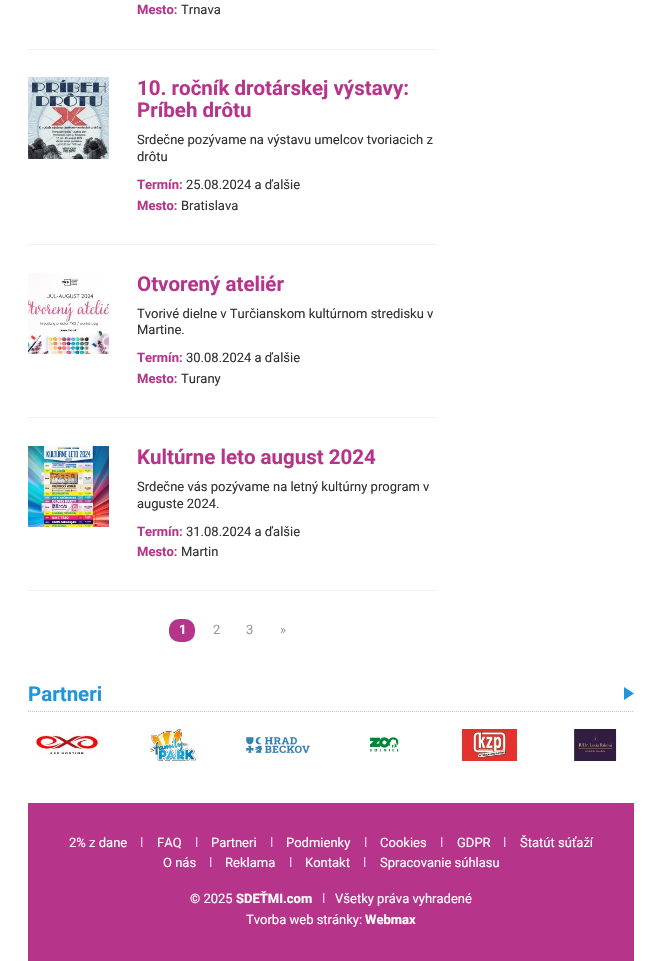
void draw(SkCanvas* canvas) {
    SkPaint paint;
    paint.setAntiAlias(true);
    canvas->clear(0xFFFFFFFF);
    SkFont font1(fontMgr->matchFamilyStyle("Roboto", SkFontStyle::Bold()), 13);
    font1.setSubpixel(true);
    paint.setColor(0xFFB6358B);
    canvas->drawString("Mesto:", 137, 14, font1, paint);
    SkFont font2(fontMgr->matchFamilyStyle("Roboto", SkFontStyle::Normal()), 13);
    font2.setSubpixel(true);
    paint.setColor(0xFF313131);
    canvas->drawString("Trnava", 181, 14, font2, paint);
    paint.setColor(0xFFF0F0F0);
    canvas->drawRect(SkRect::MakeXYWH(28, 49, 409, 1), paint);
    canvas->drawImageRect(SkImages::DeferredFromEncodedData(SkData::MakeFromFileName("img1.png")), SkRect::MakeXYWH(28, 77, 81, 82), SkSamplingOptions());
    SkFont font3(fontMgr->matchFamilyStyle("Roboto", SkFontStyle::Bold()), 20.5f);
    font3.setSubpixel(true);
    paint.setColor(0xFFB6358B);
    canvas->drawString("10. ročník drotárskej výstavy:", 137, 95, font3, paint);
    canvas->drawString("Príbeh drôtu", 137, 117, font3, paint);
    paint.setColor(0xFF313131);
    canvas->drawString("Srdečne pozývame na výstavu umelcov tvoriacich z", 137, 144, font2, paint);
    canvas->drawString("drôtu", 137, 161, font2, paint);
    paint.setColor(0xFFB6358B);
    canvas->drawString("Termín:", 137, 189, font1, paint);
    paint.setColor(0xFF313131);
    canvas->drawString("25.08.2024 a ďalšie", 186, 189, font2, paint);
    paint.setColor(0xFFB6358B);
    canvas->drawString("Mesto:", 137, 210, font1, paint);
    paint.setColor(0xFF313131);
    canvas->drawString("Bratislava", 181, 210, font2, paint);
    paint.setColor(0xFFF0F0F0);
    canvas->drawRect(SkRect::MakeXYWH(28, 244, 409, 1), paint);
    canvas->drawImageRect(SkImages::DeferredFromEncodedData(SkData::MakeFromFileName("img2.png")), SkRect::MakeXYWH(28, 273, 81, 81), SkSamplingOptions());
    paint.setColor(0xFFB6358B);
    canvas->drawString("Otvorený ateliér", 137, 291, font3, paint);
    paint.setColor(0xFF313131);
    canvas->drawString("Tvorivé dielne v Turčianskom kultúrnom stredisku v", 137, 318, font2, paint);
    canvas->drawString("Martine.", 137, 334, font2, paint);
    paint.setColor(0xFFB6358B);
    canvas->drawString("Termín:", 137, 362, font1, paint);
    paint.setColor(0xFF313131);
    canvas->drawString("30.08.2024 a ďalšie", 186, 362, font2, paint);
    paint.setColor(0xFFB6358B);
    canvas->drawString("Mesto:", 137, 383, font1, paint);
    paint.setColor(0xFF313131);
    canvas->drawString("Turany", 181, 383, font2, paint);
    paint.setColor(0xFFF0F0F0);
    canvas->drawRect(SkRect::MakeXYWH(28, 417, 409, 1), paint);
    canvas->drawImageRect(SkImages::DeferredFromEncodedData(SkData::MakeFromFileName("img3.png")), SkRect::MakeXYWH(28, 446, 81, 81), SkSamplingOptions());
    paint.setColor(0xFFB6358B);
    canvas->drawString("Kultúrne leto august 2024", 137, 464, font3, paint);
    paint.setColor(0xFF313131);
    canvas->drawString("Srdečne vás pozývame na letný kultúrny program v", 137, 491, font2, paint);
    canvas->drawString("auguste 2024.", 137, 508, font2, paint);
    paint.setColor(0xFFB6358B);
    canvas->drawString("Termín:", 137, 536, font1, paint);
    paint.setColor(0xFF313131);
    canvas->drawString("31.08.2024 a ďalšie", 186, 536, font2, paint);
    paint.setColor(0xFFB6358B);
    canvas->drawString("Mesto:", 137, 556, font1, paint);
    paint.setColor(0xFF313131);
    canvas->drawString("Martin", 181, 556, font2, paint);
    paint.setColor(0xFFF0F0F0);
    canvas->drawRect(SkRect::MakeXYWH(28, 590, 409, 1), paint);
    paint.setColor(0xFFB6358B);
    canvas->drawRoundRect(SkRect::MakeXYWH(169, 619, 26, 23), 10, 10, paint);
    paint.setColor(0xFFFFFFFF);
    canvas->drawString("1", 179, 634, font1, paint);
    paint.setColor(0xFF999999);
    canvas->drawString("2", 213, 634, font2, paint);
    canvas->drawString("3", 246, 634, font2, paint);
    canvas->drawString("»", 280, 634, font2, paint);
    paint.setStyle(SkPaint::kStroke_Style);
    paint.setStrokeWidth(1);
    paint.setColor(0xFFC3C3C3);
    paint.setPathEffect(SkDashPathEffect::Make({{1, 1}}, 0));
    canvas->drawPath(SkPathBuilder().moveTo(28, 711.5f).lineTo(634, 711.5f).detach(), paint);
    paint.setPathEffect(nullptr);
    paint.setStyle(SkPaint::kFill_Style);
    paint.setColor(0xFF2195D9);
    canvas->drawString("Partneri", 28, 701, font3, paint);
    canvas->drawPath(SkPathBuilder().moveTo(624, 687).lineTo(624, 700).lineTo(634, 693.5f).detach(), paint);
    canvas->drawImageRect(SkImages::DeferredFromEncodedData(SkData::MakeFromFileName("img4.png")), SkRect::MakeXYWH(32, 729, 72, 26), SkSamplingOptions());
    canvas->drawImageRect(SkImages::DeferredFromEncodedData(SkData::MakeFromFileName("img5.png")), SkRect::MakeXYWH(148, 729, 51, 32), SkSamplingOptions());
    canvas->drawImageRect(SkImages::DeferredFromEncodedData(SkData::MakeFromFileName("img6.png")), SkRect::MakeXYWH(246, 737, 64, 16), SkSamplingOptions());
    canvas->drawImageRect(SkImages::DeferredFromEncodedData(SkData::MakeFromFileName("img7.png")), SkRect::MakeXYWH(370, 737, 29, 15), SkSamplingOptions());
    canvas->drawImageRect(SkImages::DeferredFromEncodedData(SkData::MakeFromFileName("img8.png")), SkRect::MakeXYWH(460, 729, 58, 32), SkSamplingOptions());
    canvas->drawImageRect(SkImages::DeferredFromEncodedData(SkData::MakeFromFileName("img9.png")), SkRect::MakeXYWH(574, 729, 43, 32), SkSamplingOptions());
    paint.setColor(0xFFB6358B);
    canvas->drawRect(SkRect::MakeXYWH(28, 803, 606, 158), paint);
    paint.setColor(0xFFFFFFFF);
    canvas->drawString("2% z dane", 69, 847, font2, paint);
    paint.setColor(0xFFF7C9E9);
    canvas->drawString("l", 140, 847, font2, paint);
    paint.setColor(0xFFFFFFFF);
    canvas->drawString("FAQ", 157, 847, font2, paint);
    paint.setColor(0xFFF7C9E9);
    canvas->drawString("l", 195, 847, font2, paint);
    paint.setColor(0xFFFFFFFF);
    canvas->drawString("Partneri", 211, 847, font2, paint);
    paint.setColor(0xFFF7C9E9);
    canvas->drawString("l", 270, 847, font2, paint);
    paint.setColor(0xFFFFFFFF);
    canvas->drawString("Podmienky", 286, 847, font2, paint);
    paint.setColor(0xFFF7C9E9);
    canvas->drawString("l", 364, 847, font2, paint);
    paint.setColor(0xFFFFFFFF);
    canvas->drawString("Cookies", 380, 847, font2, paint);
    paint.setColor(0xFFF7C9E9);
    canvas->drawString("l", 440, 847, font2, paint);
    paint.setColor(0xFFFFFFFF);
    canvas->drawString("GDPR", 457, 847, font2, paint);
    paint.setColor(0xFFF7C9E9);
    canvas->drawString("l", 503, 847, font2, paint);
    paint.setColor(0xFFFFFFFF);
    canvas->drawString("Štatút súťaží", 520, 847, font2, paint);
    canvas->drawString("O nás", 163, 867, font2, paint);
    paint.setColor(0xFFF7C9E9);
    canvas->drawString("l", 209, 867, font2, paint);
    paint.setColor(0xFFFFFFFF);
    canvas->drawString("Reklama", 225, 867, font2, paint);
    paint.setColor(0xFFF7C9E9);
    canvas->drawString("l", 289, 867, font2, paint);
    paint.setColor(0xFFFFFFFF);
    canvas->drawString("Kontakt", 305, 867, font2, paint);
    paint.setColor(0xFFF7C9E9);
    canvas->drawString("l", 363, 867, font2, paint);
    paint.setColor(0xFFFFFFFF);
    canvas->drawString("Spracovanie súhlasu", 380, 867, font2, paint);
    canvas->drawString("© 2025", 190, 903, font2, paint);
    canvas->drawString("SDEŤMI.com", 236, 903, font1, paint);
    paint.setColor(0xFFF7C9E9);
    canvas->drawString("l", 322, 903, font2, paint);
    paint.setColor(0xFFFFFFFF);
    canvas->drawString("Všetky práva vyhradené", 335, 903, font2, paint);
    canvas->drawString("Tvorba web stránky:", 246, 924, font2, paint);
    canvas->drawString("Webmax", 365, 924, font1, paint);
}
